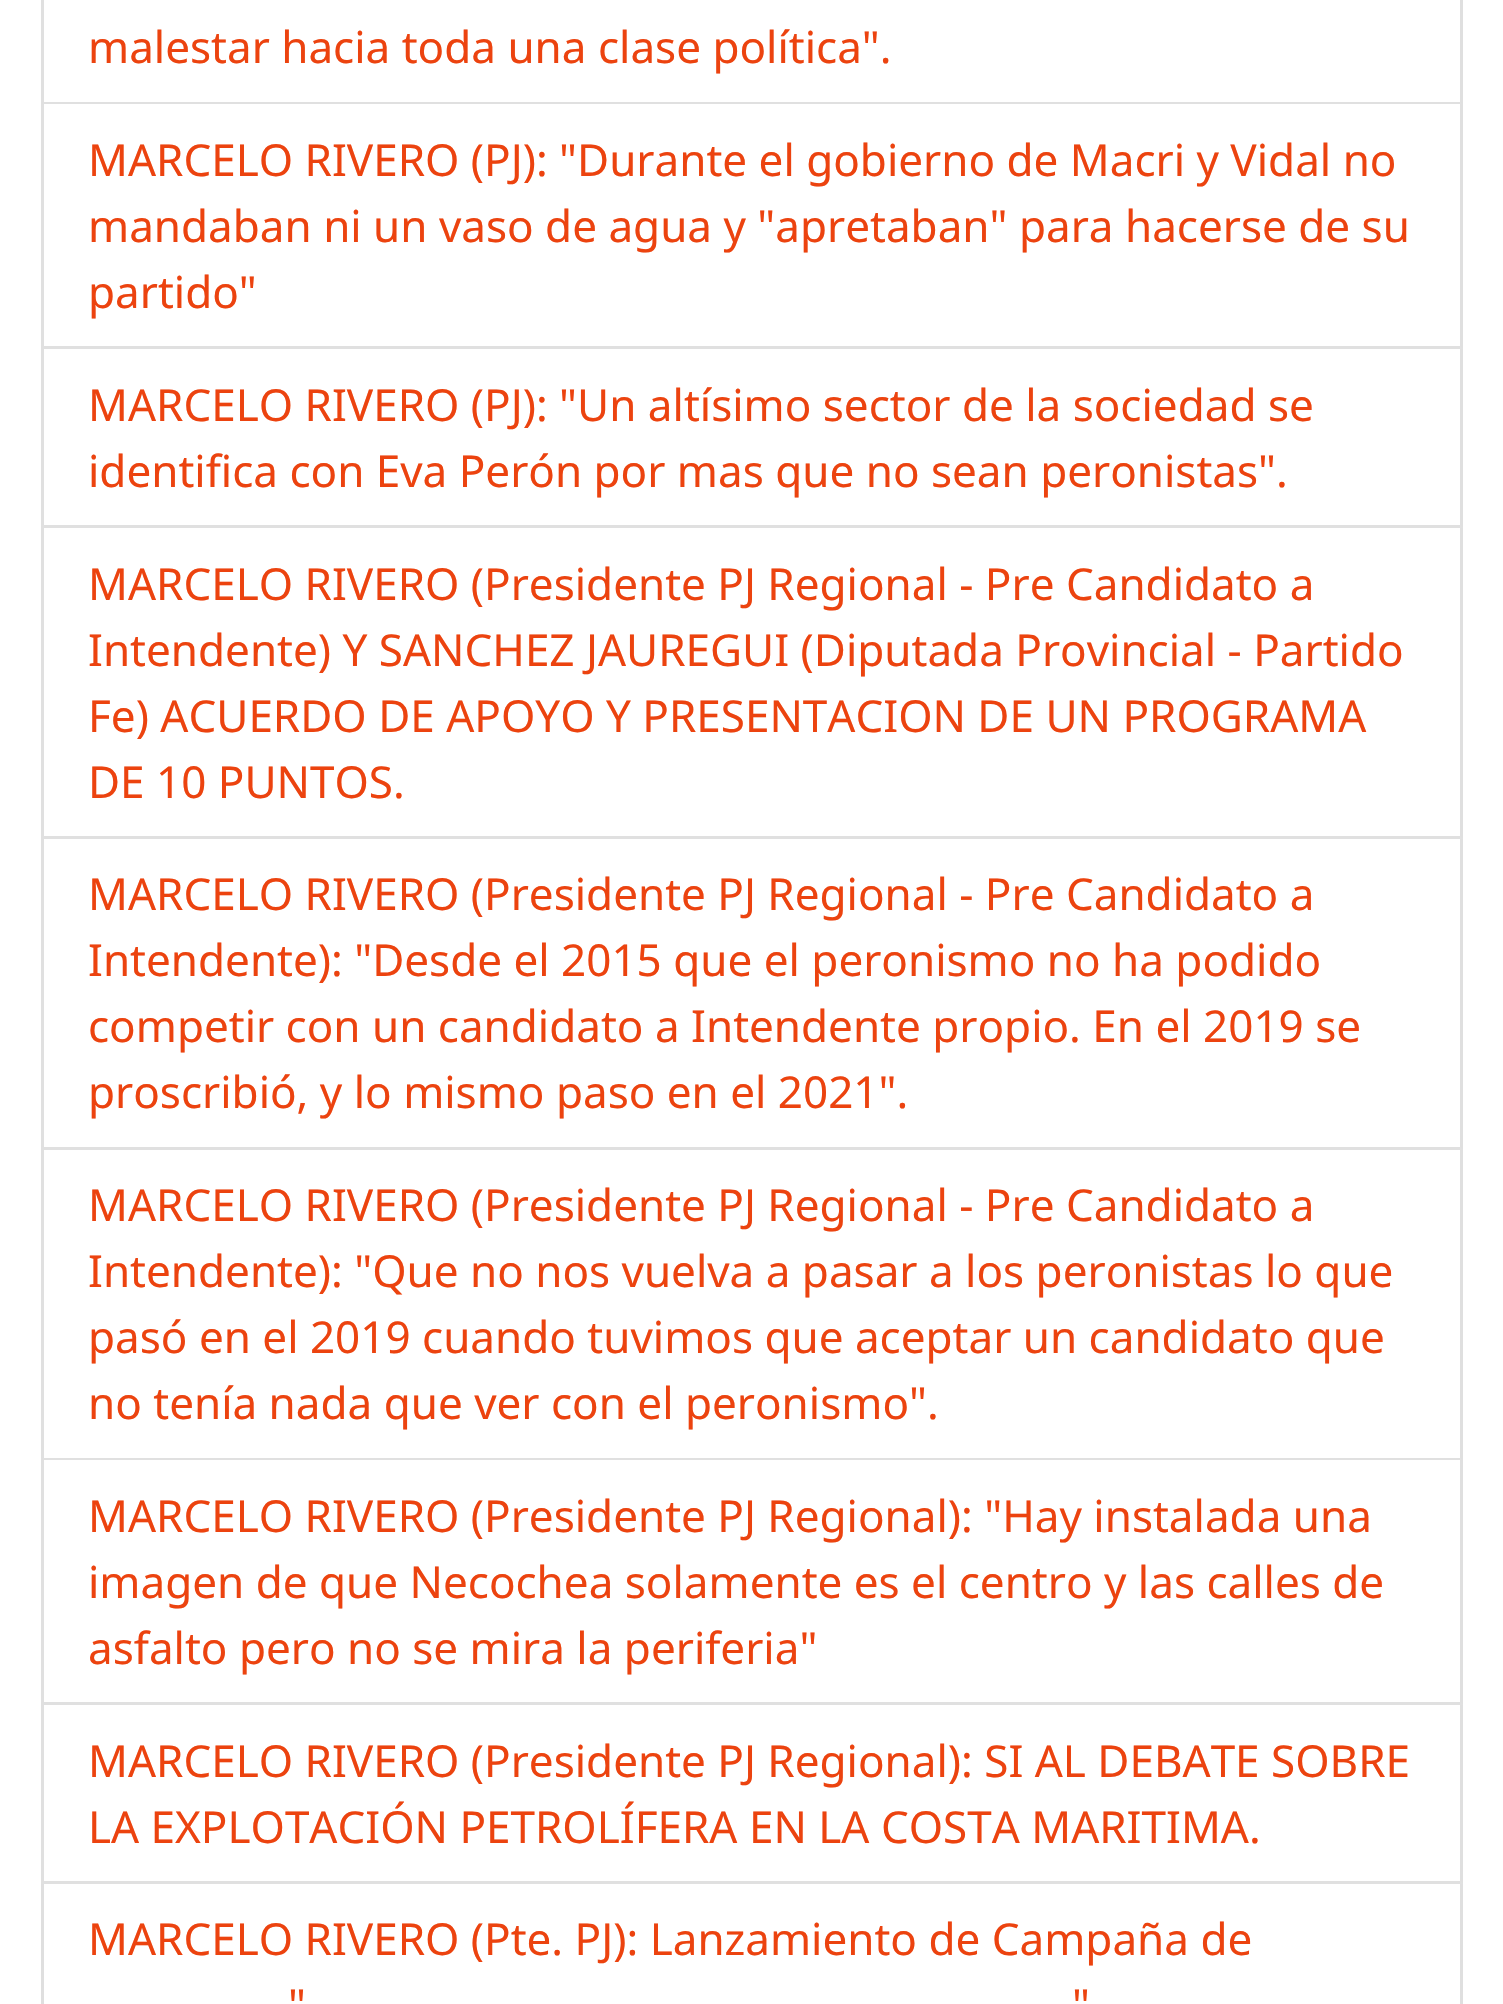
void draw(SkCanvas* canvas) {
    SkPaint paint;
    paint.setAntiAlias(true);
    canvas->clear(0xFFFFFFFF);
    paint.setColor(0xFFDFDFDF);
    canvas->drawPath(SkPathBuilder().moveTo(1463, -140).lineTo(1463, 104).lineTo(1460, 102).lineTo(1460, -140).close().detach(), paint);
    paint.setColor(0x1F000000);
    canvas->drawPath(SkPathBuilder().moveTo(1463, 104).lineTo(41, 104).lineTo(44, 102).lineTo(1460, 102).close().detach(), paint);
    canvas->drawPath(SkPathBuilder().moveTo(41, 104).lineTo(41, -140).lineTo(44, -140).lineTo(44, 102).close().detach(), paint);
    SkFont font1(fontMgr->matchFamilyStyle("Noto Sans", SkFontStyle::Normal()), 44);
    font1.setSubpixel(true);
    paint.setColor(0xFFEC430F);
    canvas->drawString("malestar hacia toda una clase política\".", 88, 63, font1, paint);
    paint.setColor(0xFFDFDFDF);
    canvas->drawPath(SkPathBuilder().moveTo(1463, 104).lineTo(1463, 349).lineTo(1460, 346).lineTo(1460, 104).close().detach(), paint);
    paint.setColor(0x1F000000);
    canvas->drawPath(SkPathBuilder().moveTo(1463, 349).lineTo(41, 349).lineTo(44, 346).lineTo(1460, 346).close().detach(), paint);
    canvas->drawPath(SkPathBuilder().moveTo(41, 349).lineTo(41, 104).lineTo(44, 104).lineTo(44, 346).close().detach(), paint);
    paint.setColor(0xFFEC430F);
    canvas->drawString("MARCELO RIVERO (PJ): \"Durante el gobierno de Macri y Vidal no", 88, 176, font1, paint);
    canvas->drawString("mandaban ni un vaso de agua y \"apretaban\" para hacerse de su", 88, 242, font1, paint);
    canvas->drawString("partido\"", 88, 308, font1, paint);
    paint.setColor(0xFFDFDFDF);
    canvas->drawPath(SkPathBuilder().moveTo(1463, 349).lineTo(1463, 528).lineTo(1460, 525).lineTo(1460, 349).close().detach(), paint);
    paint.setColor(0x1F000000);
    canvas->drawPath(SkPathBuilder().moveTo(1463, 528).lineTo(41, 528).lineTo(44, 525).lineTo(1460, 525).close().detach(), paint);
    canvas->drawPath(SkPathBuilder().moveTo(41, 528).lineTo(41, 349).lineTo(44, 349).lineTo(44, 525).close().detach(), paint);
    paint.setColor(0xFFEC430F);
    canvas->drawString("MARCELO RIVERO (PJ): \"Un altísimo sector de la sociedad se", 88, 421, font1, paint);
    canvas->drawString("identifica con Eva Perón por mas que no sean peronistas\".", 88, 487, font1, paint);
    paint.setColor(0xFFDFDFDF);
    canvas->drawPath(SkPathBuilder().moveTo(1463, 528).lineTo(1463, 839).lineTo(1460, 836).lineTo(1460, 528).close().detach(), paint);
    paint.setColor(0x1F000000);
    canvas->drawPath(SkPathBuilder().moveTo(1463, 839).lineTo(41, 839).lineTo(44, 836).lineTo(1460, 836).close().detach(), paint);
    canvas->drawPath(SkPathBuilder().moveTo(41, 839).lineTo(41, 528).lineTo(44, 528).lineTo(44, 836).close().detach(), paint);
    paint.setColor(0xFFEC430F);
    canvas->drawString("MARCELO RIVERO (Presidente PJ Regional - Pre Candidato a", 88, 600, font1, paint);
    canvas->drawString("Intendente) Y SANCHEZ JAUREGUI (Diputada Provincial - Partido", 88, 666, font1, paint);
    canvas->drawString("Fe) ACUERDO DE APOYO Y PRESENTACION DE UN PROGRAMA", 88, 732, font1, paint);
    canvas->drawString("DE 10 PUNTOS.", 88, 798, font1, paint);
    paint.setColor(0xFFDFDFDF);
    canvas->drawPath(SkPathBuilder().moveTo(1463, 839).lineTo(1463, 1150).lineTo(1460, 1147).lineTo(1460, 839).close().detach(), paint);
    paint.setColor(0x1F000000);
    canvas->drawPath(SkPathBuilder().moveTo(1463, 1150).lineTo(41, 1150).lineTo(44, 1147).lineTo(1460, 1147).close().detach(), paint);
    canvas->drawPath(SkPathBuilder().moveTo(41, 1150).lineTo(41, 839).lineTo(44, 839).lineTo(44, 1147).close().detach(), paint);
    paint.setColor(0xFFEC430F);
    canvas->drawString("MARCELO RIVERO (Presidente PJ Regional - Pre Candidato a", 88, 910, font1, paint);
    canvas->drawString("Intendente): \"Desde el 2015 que el peronismo no ha podido", 88, 976, font1, paint);
    canvas->drawString("competir con un candidato a Intendente propio. En el 2019 se", 88, 1042, font1, paint);
    canvas->drawString("proscribió, y lo mismo paso en el 2021\".", 88, 1108, font1, paint);
    paint.setColor(0xFFDFDFDF);
    canvas->drawPath(SkPathBuilder().moveTo(1463, 1150).lineTo(1463, 1460).lineTo(1460, 1458).lineTo(1460, 1150).close().detach(), paint);
    paint.setColor(0x1F000000);
    canvas->drawPath(SkPathBuilder().moveTo(1463, 1460).lineTo(41, 1460).lineTo(44, 1458).lineTo(1460, 1458).close().detach(), paint);
    canvas->drawPath(SkPathBuilder().moveTo(41, 1460).lineTo(41, 1150).lineTo(44, 1150).lineTo(44, 1458).close().detach(), paint);
    paint.setColor(0xFFEC430F);
    canvas->drawString("MARCELO RIVERO (Presidente PJ Regional - Pre Candidato a", 88, 1221, font1, paint);
    canvas->drawString("Intendente): \"Que no nos vuelva a pasar a los peronistas lo que", 88, 1287, font1, paint);
    canvas->drawString("pasó en el 2019 cuando tuvimos que aceptar un candidato que", 88, 1353, font1, paint);
    canvas->drawString("no tenía nada que ver con el peronismo\".", 88, 1419, font1, paint);
    paint.setColor(0xFFDFDFDF);
    canvas->drawPath(SkPathBuilder().moveTo(1463, 1460).lineTo(1463, 1705).lineTo(1460, 1702).lineTo(1460, 1460).close().detach(), paint);
    paint.setColor(0x1F000000);
    canvas->drawPath(SkPathBuilder().moveTo(1463, 1705).lineTo(41, 1705).lineTo(44, 1702).lineTo(1460, 1702).close().detach(), paint);
    canvas->drawPath(SkPathBuilder().moveTo(41, 1705).lineTo(41, 1460).lineTo(44, 1460).lineTo(44, 1702).close().detach(), paint);
    paint.setColor(0xFFEC430F);
    canvas->drawString("MARCELO RIVERO (Presidente PJ Regional): \"Hay instalada una", 88, 1532, font1, paint);
    canvas->drawString("imagen de que Necochea solamente es el centro y las calles de", 88, 1598, font1, paint);
    canvas->drawString("asfalto pero no se mira la periferia\"", 88, 1664, font1, paint);
    paint.setColor(0xFFDFDFDF);
    canvas->drawPath(SkPathBuilder().moveTo(1463, 1705).lineTo(1463, 1884).lineTo(1460, 1881).lineTo(1460, 1705).close().detach(), paint);
    paint.setColor(0x1F000000);
    canvas->drawPath(SkPathBuilder().moveTo(1463, 1884).lineTo(41, 1884).lineTo(44, 1881).lineTo(1460, 1881).close().detach(), paint);
    canvas->drawPath(SkPathBuilder().moveTo(41, 1884).lineTo(41, 1705).lineTo(44, 1705).lineTo(44, 1881).close().detach(), paint);
    paint.setColor(0xFFEC430F);
    canvas->drawString("MARCELO RIVERO (Presidente PJ Regional): SI AL DEBATE SOBRE", 88, 1777, font1, paint);
    canvas->drawString("LA EXPLOTACIÓN PETROLÍFERA EN LA COSTA MARITIMA.", 88, 1843, font1, paint);
    paint.setColor(0xFFDFDFDF);
    canvas->drawPath(SkPathBuilder().moveTo(1463, 1884).lineTo(1463, 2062).lineTo(1460, 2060).lineTo(1460, 1884).close().detach(), paint);
    canvas->drawPath(SkPathBuilder().moveTo(41, 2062).lineTo(41, 1884).lineTo(44, 1884).lineTo(44, 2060).close().detach(), paint);
    paint.setColor(0xFFEC430F);
    canvas->drawString("MARCELO RIVERO (Pte. PJ): Lanzamiento de Campaña de", 88, 1955, font1, paint);
    canvas->drawString("\"", 288, 2021, font1, paint);
    canvas->drawString("\"", 1072, 2021, font1, paint);
}
